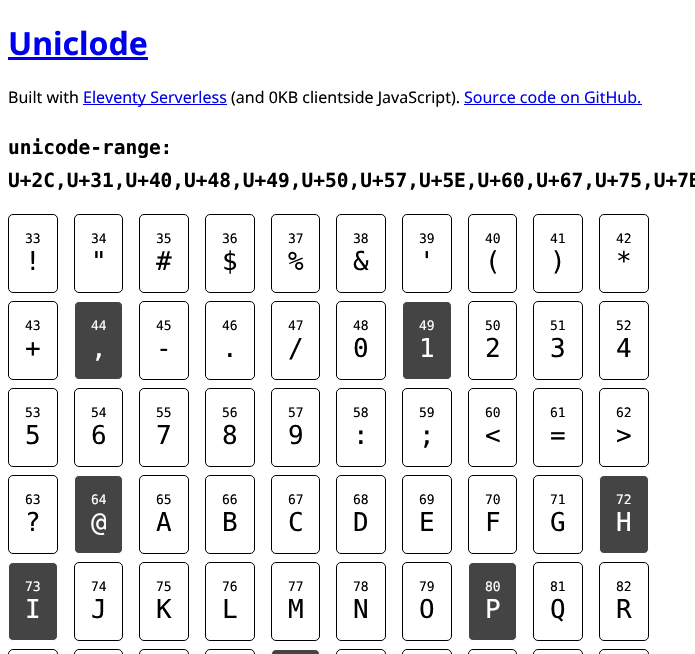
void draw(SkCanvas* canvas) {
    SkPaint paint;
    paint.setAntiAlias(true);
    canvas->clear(0xFFFFFFFF);
    SkFont font1(fontMgr->matchFamilyStyle("Noto Sans", SkFontStyle::Bold()), 32);
    font1.setSubpixel(true);
    paint.setColor(0xFF0000EE);
    canvas->drawString("Uniclode", 8, 55, font1, paint);
    canvas->drawRect(SkRect::MakeXYWH(8, 57, 140, 3), paint);
    SkFont font2(fontMgr->matchFamilyStyle("Noto Sans", SkFontStyle::Normal()), 16);
    font2.setSubpixel(true);
    paint.setColor(0xFF000000);
    canvas->drawString("Built with", 8, 103, font2, paint);
    paint.setColor(0xFF0000EE);
    canvas->drawRect(SkRect::MakeXYWH(83, 104, 144, 1), paint);
    canvas->drawString("Eleventy Serverless", 83, 103, font2, paint);
    paint.setColor(0xFF000000);
    canvas->drawString("(and 0KB clientside JavaScript).", 231, 103, font2, paint);
    paint.setColor(0xFF0000EE);
    canvas->drawString("Source code on GitHub.", 464, 103, font2, paint);
    canvas->drawRect(SkRect::MakeXYWH(464, 104, 178, 1), paint);
    SkFont font3(fontMgr->matchFamilyStyle("DejaVu Sans Mono", SkFontStyle::Bold()), 19.5f);
    font3.setSubpixel(true);
    paint.setColor(0xFF000000);
    canvas->drawString("unicode-range:", 8, 154, font3, paint);
    canvas->drawString("U+2C,U+31,U+40,U+48,U+49,U+50,U+57,U+5E,U+60,U+67,U+75,U+7B", 8, 187, font3, paint);
    paint.setStyle(SkPaint::kStroke_Style);
    paint.setStrokeWidth(1);
    canvas->drawRoundRect(SkRect::MakeXYWH(8.5f, 214.5f, 49, 78), 4.5f, 4.5f, paint);
    SkFont font4(fontMgr->matchFamilyStyle("DejaVu Sans Mono", SkFontStyle::Normal()), 13);
    font4.setSubpixel(true);
    paint.setStyle(SkPaint::kFill_Style);
    canvas->drawString("33", 25, 243, font4, paint);
    SkFont font5(fontMgr->matchFamilyStyle("DejaVu Sans Mono", SkFontStyle::Normal()), 26);
    font5.setSubpixel(true);
    canvas->drawString("!", 25, 270, font5, paint);
    paint.setStyle(SkPaint::kStroke_Style);
    canvas->drawRoundRect(SkRect::MakeXYWH(74.5f, 214.5f, 48, 78), 4.5f, 4.5f, paint);
    paint.setStyle(SkPaint::kFill_Style);
    canvas->drawString("34", 91, 243, font4, paint);
    canvas->drawString("\"", 91, 270, font5, paint);
    paint.setStyle(SkPaint::kStroke_Style);
    canvas->drawRoundRect(SkRect::MakeXYWH(139.5f, 214.5f, 49, 78), 4.5f, 4.5f, paint);
    paint.setStyle(SkPaint::kFill_Style);
    canvas->drawString("35", 156, 243, font4, paint);
    canvas->drawString("#", 156, 270, font5, paint);
    paint.setStyle(SkPaint::kStroke_Style);
    canvas->drawRoundRect(SkRect::MakeXYWH(205.5f, 214.5f, 49, 78), 4.5f, 4.5f, paint);
    paint.setStyle(SkPaint::kFill_Style);
    canvas->drawString("36", 222, 243, font4, paint);
    canvas->drawString("$", 222, 270, font5, paint);
    paint.setStyle(SkPaint::kStroke_Style);
    canvas->drawRoundRect(SkRect::MakeXYWH(271.5f, 214.5f, 48, 78), 4.5f, 4.5f, paint);
    paint.setStyle(SkPaint::kFill_Style);
    canvas->drawString("37", 288, 243, font4, paint);
    canvas->drawString("%", 288, 270, font5, paint);
    paint.setStyle(SkPaint::kStroke_Style);
    canvas->drawRoundRect(SkRect::MakeXYWH(336.5f, 214.5f, 49, 78), 4.5f, 4.5f, paint);
    paint.setStyle(SkPaint::kFill_Style);
    canvas->drawString("38", 353, 243, font4, paint);
    canvas->drawString("&", 353, 270, font5, paint);
    paint.setStyle(SkPaint::kStroke_Style);
    canvas->drawRoundRect(SkRect::MakeXYWH(402.5f, 214.5f, 49, 78), 4.5f, 4.5f, paint);
    paint.setStyle(SkPaint::kFill_Style);
    canvas->drawString("39", 419, 243, font4, paint);
    canvas->drawString("'", 419, 270, font5, paint);
    paint.setStyle(SkPaint::kStroke_Style);
    canvas->drawRoundRect(SkRect::MakeXYWH(468.5f, 214.5f, 48, 78), 4.5f, 4.5f, paint);
    paint.setStyle(SkPaint::kFill_Style);
    canvas->drawString("40", 485, 243, font4, paint);
    canvas->drawString("(", 485, 270, font5, paint);
    paint.setStyle(SkPaint::kStroke_Style);
    canvas->drawRoundRect(SkRect::MakeXYWH(533.5f, 214.5f, 49, 78), 4.5f, 4.5f, paint);
    paint.setStyle(SkPaint::kFill_Style);
    canvas->drawString("41", 550, 243, font4, paint);
    canvas->drawString(")", 550, 270, font5, paint);
    paint.setStyle(SkPaint::kStroke_Style);
    canvas->drawRoundRect(SkRect::MakeXYWH(599.5f, 214.5f, 49, 78), 4.5f, 4.5f, paint);
    paint.setStyle(SkPaint::kFill_Style);
    canvas->drawString("42", 616, 243, font4, paint);
    canvas->drawString("*", 616, 270, font5, paint);
    paint.setStyle(SkPaint::kStroke_Style);
    canvas->drawRoundRect(SkRect::MakeXYWH(8.5f, 301.5f, 49, 78), 4.5f, 4.5f, paint);
    paint.setStyle(SkPaint::kFill_Style);
    canvas->drawString("43", 25, 330, font4, paint);
    canvas->drawString("+", 25, 357, font5, paint);
    paint.setColor(0xFF444444);
    canvas->drawRoundRect(SkRect::MakeXYWH(74.5f, 301.5f, 48, 78), 4.5f, 4.5f, paint);
    paint.setStyle(SkPaint::kStroke_Style);
    paint.setColor(0xFFFFFFFF);
    canvas->drawRoundRect(SkRect::MakeXYWH(74.5f, 301.5f, 48, 78), 4.5f, 4.5f, paint);
    paint.setStyle(SkPaint::kFill_Style);
    canvas->drawString("44", 91, 330, font4, paint);
    canvas->drawString(",", 91, 357, font5, paint);
    paint.setStyle(SkPaint::kStroke_Style);
    paint.setColor(0xFF000000);
    canvas->drawRoundRect(SkRect::MakeXYWH(139.5f, 301.5f, 49, 78), 4.5f, 4.5f, paint);
    paint.setStyle(SkPaint::kFill_Style);
    canvas->drawString("45", 156, 330, font4, paint);
    canvas->drawString("-", 156, 357, font5, paint);
    paint.setStyle(SkPaint::kStroke_Style);
    canvas->drawRoundRect(SkRect::MakeXYWH(205.5f, 301.5f, 49, 78), 4.5f, 4.5f, paint);
    paint.setStyle(SkPaint::kFill_Style);
    canvas->drawString("46", 222, 330, font4, paint);
    canvas->drawString(".", 222, 357, font5, paint);
    paint.setStyle(SkPaint::kStroke_Style);
    canvas->drawRoundRect(SkRect::MakeXYWH(271.5f, 301.5f, 48, 78), 4.5f, 4.5f, paint);
    paint.setStyle(SkPaint::kFill_Style);
    canvas->drawString("47", 288, 330, font4, paint);
    canvas->drawString("/", 288, 357, font5, paint);
    paint.setStyle(SkPaint::kStroke_Style);
    canvas->drawRoundRect(SkRect::MakeXYWH(336.5f, 301.5f, 49, 78), 4.5f, 4.5f, paint);
    paint.setStyle(SkPaint::kFill_Style);
    canvas->drawString("48", 353, 330, font4, paint);
    canvas->drawString("0", 353, 357, font5, paint);
    paint.setColor(0xFF444444);
    canvas->drawRoundRect(SkRect::MakeXYWH(402.5f, 301.5f, 49, 78), 4.5f, 4.5f, paint);
    paint.setStyle(SkPaint::kStroke_Style);
    paint.setColor(0xFFFFFFFF);
    canvas->drawRoundRect(SkRect::MakeXYWH(402.5f, 301.5f, 49, 78), 4.5f, 4.5f, paint);
    paint.setStyle(SkPaint::kFill_Style);
    canvas->drawString("49", 419, 330, font4, paint);
    canvas->drawString("1", 419, 357, font5, paint);
    paint.setStyle(SkPaint::kStroke_Style);
    paint.setColor(0xFF000000);
    canvas->drawRoundRect(SkRect::MakeXYWH(468.5f, 301.5f, 48, 78), 4.5f, 4.5f, paint);
    paint.setStyle(SkPaint::kFill_Style);
    canvas->drawString("50", 485, 330, font4, paint);
    canvas->drawString("2", 485, 357, font5, paint);
    paint.setStyle(SkPaint::kStroke_Style);
    canvas->drawRoundRect(SkRect::MakeXYWH(533.5f, 301.5f, 49, 78), 4.5f, 4.5f, paint);
    paint.setStyle(SkPaint::kFill_Style);
    canvas->drawString("51", 550, 330, font4, paint);
    canvas->drawString("3", 550, 357, font5, paint);
    paint.setStyle(SkPaint::kStroke_Style);
    canvas->drawRoundRect(SkRect::MakeXYWH(599.5f, 301.5f, 49, 78), 4.5f, 4.5f, paint);
    paint.setStyle(SkPaint::kFill_Style);
    canvas->drawString("52", 616, 330, font4, paint);
    canvas->drawString("4", 616, 357, font5, paint);
    paint.setStyle(SkPaint::kStroke_Style);
    canvas->drawRoundRect(SkRect::MakeXYWH(8.5f, 388.5f, 49, 78), 4.5f, 4.5f, paint);
    paint.setStyle(SkPaint::kFill_Style);
    canvas->drawString("53", 25, 417, font4, paint);
    canvas->drawString("5", 25, 444, font5, paint);
    paint.setStyle(SkPaint::kStroke_Style);
    canvas->drawRoundRect(SkRect::MakeXYWH(74.5f, 388.5f, 48, 78), 4.5f, 4.5f, paint);
    paint.setStyle(SkPaint::kFill_Style);
    canvas->drawString("54", 91, 417, font4, paint);
    canvas->drawString("6", 91, 444, font5, paint);
    paint.setStyle(SkPaint::kStroke_Style);
    canvas->drawRoundRect(SkRect::MakeXYWH(139.5f, 388.5f, 49, 78), 4.5f, 4.5f, paint);
    paint.setStyle(SkPaint::kFill_Style);
    canvas->drawString("55", 156, 417, font4, paint);
    canvas->drawString("7", 156, 444, font5, paint);
    paint.setStyle(SkPaint::kStroke_Style);
    canvas->drawRoundRect(SkRect::MakeXYWH(205.5f, 388.5f, 49, 78), 4.5f, 4.5f, paint);
    paint.setStyle(SkPaint::kFill_Style);
    canvas->drawString("56", 222, 417, font4, paint);
    canvas->drawString("8", 222, 444, font5, paint);
    paint.setStyle(SkPaint::kStroke_Style);
    canvas->drawRoundRect(SkRect::MakeXYWH(271.5f, 388.5f, 48, 78), 4.5f, 4.5f, paint);
    paint.setStyle(SkPaint::kFill_Style);
    canvas->drawString("57", 288, 417, font4, paint);
    canvas->drawString("9", 288, 444, font5, paint);
    paint.setStyle(SkPaint::kStroke_Style);
    canvas->drawRoundRect(SkRect::MakeXYWH(336.5f, 388.5f, 49, 78), 4.5f, 4.5f, paint);
    paint.setStyle(SkPaint::kFill_Style);
    canvas->drawString("58", 353, 417, font4, paint);
    canvas->drawString(":", 353, 444, font5, paint);
    paint.setStyle(SkPaint::kStroke_Style);
    canvas->drawRoundRect(SkRect::MakeXYWH(402.5f, 388.5f, 49, 78), 4.5f, 4.5f, paint);
    paint.setStyle(SkPaint::kFill_Style);
    canvas->drawString("59", 419, 417, font4, paint);
    canvas->drawString(";", 419, 444, font5, paint);
    paint.setStyle(SkPaint::kStroke_Style);
    canvas->drawRoundRect(SkRect::MakeXYWH(468.5f, 388.5f, 48, 78), 4.5f, 4.5f, paint);
    paint.setStyle(SkPaint::kFill_Style);
    canvas->drawString("60", 485, 417, font4, paint);
    canvas->drawString("<", 485, 444, font5, paint);
    paint.setStyle(SkPaint::kStroke_Style);
    canvas->drawRoundRect(SkRect::MakeXYWH(533.5f, 388.5f, 49, 78), 4.5f, 4.5f, paint);
    paint.setStyle(SkPaint::kFill_Style);
    canvas->drawString("61", 550, 417, font4, paint);
    canvas->drawString("=", 550, 444, font5, paint);
    paint.setStyle(SkPaint::kStroke_Style);
    canvas->drawRoundRect(SkRect::MakeXYWH(599.5f, 388.5f, 49, 78), 4.5f, 4.5f, paint);
    paint.setStyle(SkPaint::kFill_Style);
    canvas->drawString("62", 616, 417, font4, paint);
    canvas->drawString(">", 616, 444, font5, paint);
    paint.setStyle(SkPaint::kStroke_Style);
    canvas->drawRoundRect(SkRect::MakeXYWH(8.5f, 475.5f, 49, 78), 4.5f, 4.5f, paint);
    paint.setStyle(SkPaint::kFill_Style);
    canvas->drawString("63", 25, 504, font4, paint);
    canvas->drawString("?", 25, 531, font5, paint);
    paint.setColor(0xFF444444);
    canvas->drawRoundRect(SkRect::MakeXYWH(74.5f, 475.5f, 48, 78), 4.5f, 4.5f, paint);
    paint.setStyle(SkPaint::kStroke_Style);
    paint.setColor(0xFFFFFFFF);
    canvas->drawRoundRect(SkRect::MakeXYWH(74.5f, 475.5f, 48, 78), 4.5f, 4.5f, paint);
    paint.setStyle(SkPaint::kFill_Style);
    canvas->drawString("64", 91, 504, font4, paint);
    canvas->drawString("@", 91, 531, font5, paint);
    paint.setStyle(SkPaint::kStroke_Style);
    paint.setColor(0xFF000000);
    canvas->drawRoundRect(SkRect::MakeXYWH(139.5f, 475.5f, 49, 78), 4.5f, 4.5f, paint);
    paint.setStyle(SkPaint::kFill_Style);
    canvas->drawString("65", 156, 504, font4, paint);
    canvas->drawString("A", 156, 531, font5, paint);
    paint.setStyle(SkPaint::kStroke_Style);
    canvas->drawRoundRect(SkRect::MakeXYWH(205.5f, 475.5f, 49, 78), 4.5f, 4.5f, paint);
    paint.setStyle(SkPaint::kFill_Style);
    canvas->drawString("66", 222, 504, font4, paint);
    canvas->drawString("B", 222, 531, font5, paint);
    paint.setStyle(SkPaint::kStroke_Style);
    canvas->drawRoundRect(SkRect::MakeXYWH(271.5f, 475.5f, 48, 78), 4.5f, 4.5f, paint);
    paint.setStyle(SkPaint::kFill_Style);
    canvas->drawString("67", 288, 504, font4, paint);
    canvas->drawString("C", 288, 531, font5, paint);
    paint.setStyle(SkPaint::kStroke_Style);
    canvas->drawRoundRect(SkRect::MakeXYWH(336.5f, 475.5f, 49, 78), 4.5f, 4.5f, paint);
    paint.setStyle(SkPaint::kFill_Style);
    canvas->drawString("68", 353, 504, font4, paint);
    canvas->drawString("D", 353, 531, font5, paint);
    paint.setStyle(SkPaint::kStroke_Style);
    canvas->drawRoundRect(SkRect::MakeXYWH(402.5f, 475.5f, 49, 78), 4.5f, 4.5f, paint);
    paint.setStyle(SkPaint::kFill_Style);
    canvas->drawString("69", 419, 504, font4, paint);
    canvas->drawString("E", 419, 531, font5, paint);
    paint.setStyle(SkPaint::kStroke_Style);
    canvas->drawRoundRect(SkRect::MakeXYWH(468.5f, 475.5f, 48, 78), 4.5f, 4.5f, paint);
    paint.setStyle(SkPaint::kFill_Style);
    canvas->drawString("70", 485, 504, font4, paint);
    canvas->drawString("F", 485, 531, font5, paint);
    paint.setStyle(SkPaint::kStroke_Style);
    canvas->drawRoundRect(SkRect::MakeXYWH(533.5f, 475.5f, 49, 78), 4.5f, 4.5f, paint);
    paint.setStyle(SkPaint::kFill_Style);
    canvas->drawString("71", 550, 504, font4, paint);
    canvas->drawString("G", 550, 531, font5, paint);
    paint.setColor(0xFF444444);
    canvas->drawRoundRect(SkRect::MakeXYWH(599.5f, 475.5f, 49, 78), 4.5f, 4.5f, paint);
    paint.setStyle(SkPaint::kStroke_Style);
    paint.setColor(0xFFFFFFFF);
    canvas->drawRoundRect(SkRect::MakeXYWH(599.5f, 475.5f, 49, 78), 4.5f, 4.5f, paint);
    paint.setStyle(SkPaint::kFill_Style);
    canvas->drawString("72", 616, 504, font4, paint);
    canvas->drawString("H", 616, 531, font5, paint);
    paint.setColor(0xFF444444);
    canvas->drawRoundRect(SkRect::MakeXYWH(8.5f, 562.5f, 49, 78), 4.5f, 4.5f, paint);
    paint.setStyle(SkPaint::kStroke_Style);
    paint.setColor(0xFFFFFFFF);
    canvas->drawRoundRect(SkRect::MakeXYWH(8.5f, 562.5f, 49, 78), 4.5f, 4.5f, paint);
    paint.setStyle(SkPaint::kFill_Style);
    canvas->drawString("73", 25, 591, font4, paint);
    canvas->drawString("I", 25, 618, font5, paint);
    paint.setStyle(SkPaint::kStroke_Style);
    paint.setColor(0xFF000000);
    canvas->drawRoundRect(SkRect::MakeXYWH(74.5f, 562.5f, 48, 78), 4.5f, 4.5f, paint);
    paint.setStyle(SkPaint::kFill_Style);
    canvas->drawString("74", 91, 591, font4, paint);
    canvas->drawString("J", 91, 618, font5, paint);
    paint.setStyle(SkPaint::kStroke_Style);
    canvas->drawRoundRect(SkRect::MakeXYWH(139.5f, 562.5f, 49, 78), 4.5f, 4.5f, paint);
    paint.setStyle(SkPaint::kFill_Style);
    canvas->drawString("75", 156, 591, font4, paint);
    canvas->drawString("K", 156, 618, font5, paint);
    paint.setStyle(SkPaint::kStroke_Style);
    canvas->drawRoundRect(SkRect::MakeXYWH(205.5f, 562.5f, 49, 78), 4.5f, 4.5f, paint);
    paint.setStyle(SkPaint::kFill_Style);
    canvas->drawString("76", 222, 591, font4, paint);
    canvas->drawString("L", 222, 618, font5, paint);
    paint.setStyle(SkPaint::kStroke_Style);
    canvas->drawRoundRect(SkRect::MakeXYWH(271.5f, 562.5f, 48, 78), 4.5f, 4.5f, paint);
    paint.setStyle(SkPaint::kFill_Style);
    canvas->drawString("77", 288, 591, font4, paint);
    canvas->drawString("M", 288, 618, font5, paint);
    paint.setStyle(SkPaint::kStroke_Style);
    canvas->drawRoundRect(SkRect::MakeXYWH(336.5f, 562.5f, 49, 78), 4.5f, 4.5f, paint);
    paint.setStyle(SkPaint::kFill_Style);
    canvas->drawString("78", 353, 591, font4, paint);
    canvas->drawString("N", 353, 618, font5, paint);
    paint.setStyle(SkPaint::kStroke_Style);
    canvas->drawRoundRect(SkRect::MakeXYWH(402.5f, 562.5f, 49, 78), 4.5f, 4.5f, paint);
    paint.setStyle(SkPaint::kFill_Style);
    canvas->drawString("79", 419, 591, font4, paint);
    canvas->drawString("O", 419, 618, font5, paint);
    paint.setColor(0xFF444444);
    canvas->drawRoundRect(SkRect::MakeXYWH(468.5f, 562.5f, 48, 78), 4.5f, 4.5f, paint);
    paint.setStyle(SkPaint::kStroke_Style);
    paint.setColor(0xFFFFFFFF);
    canvas->drawRoundRect(SkRect::MakeXYWH(468.5f, 562.5f, 48, 78), 4.5f, 4.5f, paint);
    paint.setStyle(SkPaint::kFill_Style);
    canvas->drawString("80", 485, 591, font4, paint);
    canvas->drawString("P", 485, 618, font5, paint);
    paint.setStyle(SkPaint::kStroke_Style);
    paint.setColor(0xFF000000);
    canvas->drawRoundRect(SkRect::MakeXYWH(533.5f, 562.5f, 49, 78), 4.5f, 4.5f, paint);
    paint.setStyle(SkPaint::kFill_Style);
    canvas->drawString("81", 550, 591, font4, paint);
    canvas->drawString("Q", 550, 618, font5, paint);
    paint.setStyle(SkPaint::kStroke_Style);
    canvas->drawRoundRect(SkRect::MakeXYWH(599.5f, 562.5f, 49, 78), 4.5f, 4.5f, paint);
    paint.setStyle(SkPaint::kFill_Style);
    canvas->drawString("82", 616, 591, font4, paint);
    canvas->drawString("R", 616, 618, font5, paint);
    paint.setStyle(SkPaint::kStroke_Style);
    canvas->drawRoundRect(SkRect::MakeXYWH(8.5f, 649.5f, 49, 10), 4.5f, 4.5f, paint);
    canvas->drawRoundRect(SkRect::MakeXYWH(74.5f, 649.5f, 48, 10), 4.5f, 4.5f, paint);
    canvas->drawRoundRect(SkRect::MakeXYWH(139.5f, 649.5f, 49, 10), 4.5f, 4.5f, paint);
    canvas->drawRoundRect(SkRect::MakeXYWH(205.5f, 649.5f, 49, 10), 4.5f, 4.5f, paint);
    paint.setStyle(SkPaint::kFill_Style);
    paint.setColor(0xFF444444);
    canvas->drawRoundRect(SkRect::MakeXYWH(271.5f, 649.5f, 48, 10), 4.5f, 4.5f, paint);
    paint.setStyle(SkPaint::kStroke_Style);
    paint.setColor(0xFFFFFFFF);
    canvas->drawRoundRect(SkRect::MakeXYWH(271.5f, 649.5f, 48, 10), 4.5f, 4.5f, paint);
    paint.setColor(0xFF000000);
    canvas->drawRoundRect(SkRect::MakeXYWH(336.5f, 649.5f, 49, 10), 4.5f, 4.5f, paint);
    canvas->drawRoundRect(SkRect::MakeXYWH(402.5f, 649.5f, 49, 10), 4.5f, 4.5f, paint);
    canvas->drawRoundRect(SkRect::MakeXYWH(468.5f, 649.5f, 48, 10), 4.5f, 4.5f, paint);
    canvas->drawRoundRect(SkRect::MakeXYWH(533.5f, 649.5f, 49, 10), 4.5f, 4.5f, paint);
    canvas->drawRoundRect(SkRect::MakeXYWH(599.5f, 649.5f, 49, 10), 4.5f, 4.5f, paint);
}
